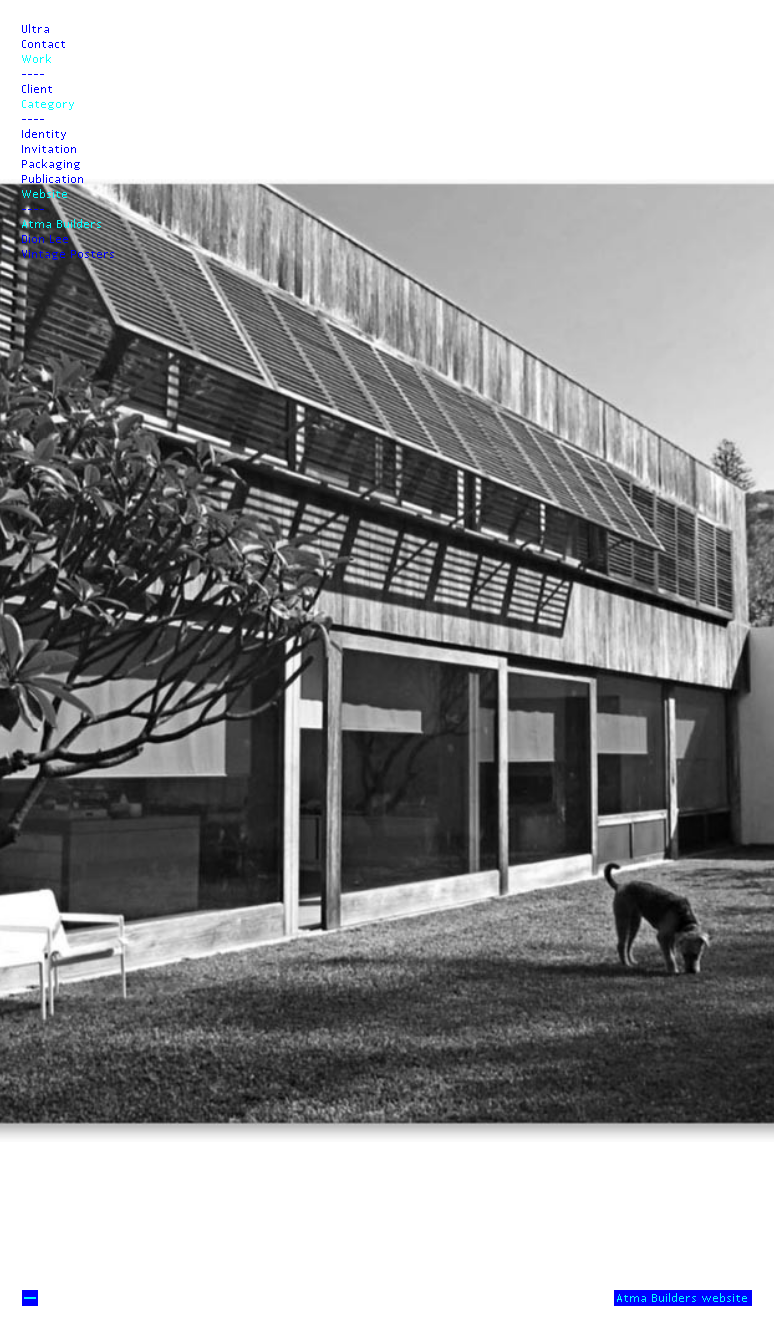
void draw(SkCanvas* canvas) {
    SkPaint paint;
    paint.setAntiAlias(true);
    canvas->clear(0xFFFFFFFF);
    SkFont font1(fontMgr->matchFamilyStyle("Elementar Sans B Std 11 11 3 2", SkFontStyle(100, SkFontStyle::kNormal_Width, SkFontStyle::kUpright_Slant)), 11);
    font1.setSubpixel(true);
    paint.setColor(0xFF0000FF);
    canvas->drawString("Ultra", 22, 33, font1, paint);
    canvas->drawString("Contact", 22, 48, font1, paint);
    paint.setColor(0xFF00FFFF);
    canvas->drawString("Work", 22, 63, font1, paint);
    paint.setColor(0xFF0000FF);
    canvas->drawString("----", 22, 78, font1, paint);
    canvas->drawString("Client", 22, 93, font1, paint);
    paint.setColor(0xFF00FFFF);
    canvas->drawString("Category", 22, 108, font1, paint);
    paint.setColor(0xFF0000FF);
    canvas->drawString("----", 22, 123, font1, paint);
    canvas->drawString("Identity", 22, 138, font1, paint);
    canvas->drawString("Invitation", 22, 153, font1, paint);
    canvas->drawString("Packaging", 22, 168, font1, paint);
    canvas->drawImageRect(SkImages::DeferredFromEncodedData(SkData::MakeFromFileName("img1.png")), SkRect::MakeXYWH(0, 179, 774, 963), SkSamplingOptions());
    canvas->drawString("Publication", 22, 183, font1, paint);
    paint.setColor(0xFF00FFFF);
    canvas->drawString("Website", 22, 198, font1, paint);
    paint.setColor(0xFF0000FF);
    canvas->drawString("----", 22, 213, font1, paint);
    paint.setColor(0xFF00FFFF);
    canvas->drawString("Atma Builders", 22, 228, font1, paint);
    paint.setColor(0xFF0000FF);
    canvas->drawString("Dion Lee", 22, 243, font1, paint);
    canvas->drawString("Vintage Posters", 22, 258, font1, paint);
    canvas->drawImageRect(SkImages::DeferredFromEncodedData(SkData::MakeFromFileName("img2.png")), SkRect::MakeXYWH(22, 1290, 16, 16), SkSamplingOptions());
    canvas->drawRect(SkRect::MakeXYWH(614, 1290, 138, 16), paint);
    paint.setColor(0xFF00FFFF);
    canvas->drawString("Atma Builders website", 617, 1302, font1, paint);
}
